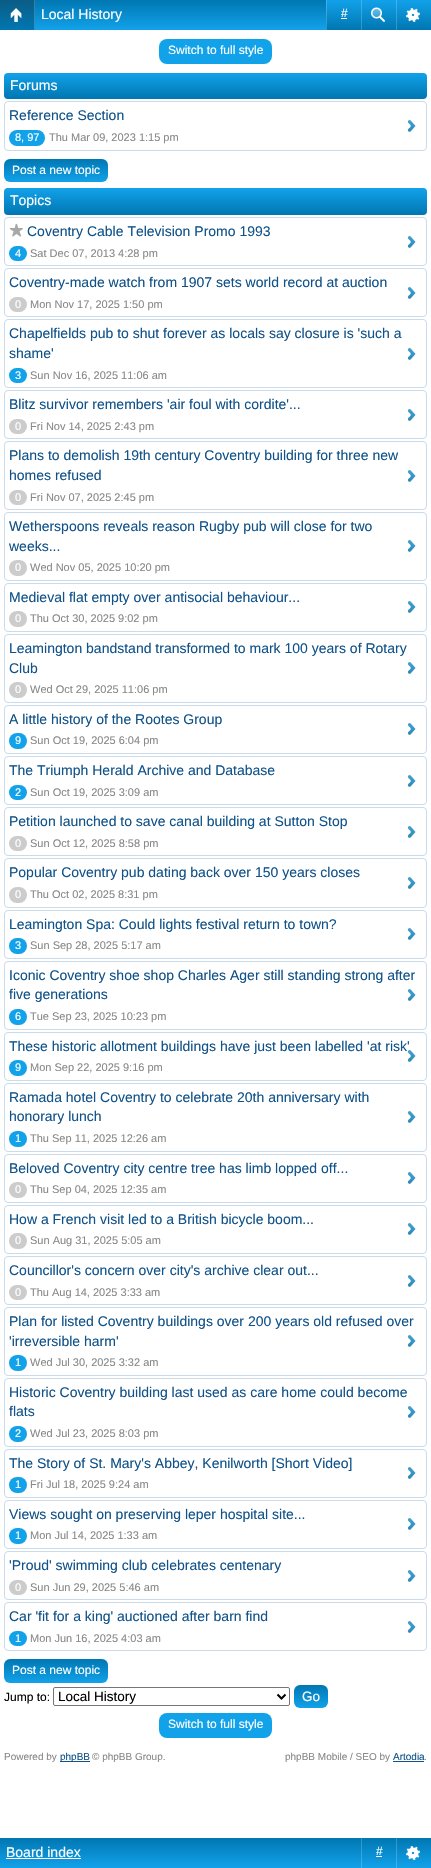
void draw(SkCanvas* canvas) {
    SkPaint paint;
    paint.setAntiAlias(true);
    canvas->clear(0xFFFFFFFF);
    {
        const SkColor colors[] = {0xFF0077B2, 0xFF12A2EA};
        const float stops[] = {0, 1};
        const SkPoint ends[] = {{216, 0}, {216, 30}};
        paint.setShader(SkGradientShader::MakeLinear(ends, colors, stops, 2, SkTileMode::kClamp));
        paint.setAlpha(255);
    }
    canvas->drawRect(SkRect::MakeXYWH(35, 0, 291, 30), paint);
    {
        const SkColor colors[] = {0xFF0B5C84, 0xFF0077B2};
        const float stops[] = {0, 1};
        const SkPoint ends[] = {{17, 0}, {18, 30}};
        paint.setShader(SkGradientShader::MakeLinear(ends, colors, stops, 2, SkTileMode::kClamp));
        paint.setAlpha(255);
    }
    canvas->drawRect(SkRect::MakeXYWH(0, 0, 34, 30), paint);
    {
        const SkColor colors[] = {0xFF3C7D9D, 0xFF3392C1};
        const float stops[] = {0, 1};
        const SkPoint ends[] = {{17, 0}, {18, 30}};
        paint.setShader(SkGradientShader::MakeLinear(ends, colors, stops, 2, SkTileMode::kClamp));
        paint.setAlpha(255);
    }
    canvas->drawRect(SkRect::MakeXYWH(34, 0, 1, 30), paint);
    canvas->drawImageRect(SkImages::DeferredFromEncodedData(SkData::MakeFromFileName("img1.png")), SkRect::MakeXYWH(10, 8, 12, 14), SkSamplingOptions());
    SkFont font1(fontMgr->matchFamilyStyle("Liberation Sans", SkFontStyle::Normal()), 14);
    font1.setSubpixel(true);
    paint.setShader(nullptr);
    paint.setColor(0xFFFFFFFF);
    canvas->drawString("Local History", 41, 19, font1, paint);
    {
        const SkColor colors[] = {0xFF12A2EA, 0xFF0076B1};
        const float stops[] = {0, 1};
        const SkPoint ends[] = {{344, 0}, {344, 30}};
        paint.setShader(SkGradientShader::MakeLinear(ends, colors, stops, 2, SkTileMode::kClamp));
        paint.setAlpha(255);
    }
    canvas->drawRect(SkRect::MakeXYWH(327, 0, 34, 30), paint);
    {
        const SkColor colors[] = {0xFF41B5EE, 0xFF3391C1};
        const float stops[] = {0, 1};
        const SkPoint ends[] = {{344, 0}, {344, 30}};
        paint.setShader(SkGradientShader::MakeLinear(ends, colors, stops, 2, SkTileMode::kClamp));
        paint.setAlpha(255);
    }
    canvas->drawRect(SkRect::MakeXYWH(326, 0, 1, 30), paint);
    SkFont font2(fontMgr->matchFamilyStyle("Liberation Sans", SkFontStyle::Normal()), 12);
    font2.setSubpixel(true);
    paint.setShader(nullptr);
    paint.setColor(0xFFFFFFFF);
    canvas->drawString("#", 341, 17, font2, paint);
    canvas->drawRect(SkRect::MakeXYWH(341, 18, 6, 1), paint);
    {
        const SkColor colors[] = {0xFF12A2EA, 0xFF0076B1};
        const float stops[] = {0, 1};
        const SkPoint ends[] = {{379, 0}, {379, 30}};
        paint.setShader(SkGradientShader::MakeLinear(ends, colors, stops, 2, SkTileMode::kClamp));
        paint.setAlpha(255);
    }
    canvas->drawRect(SkRect::MakeXYWH(362, 0, 34, 30), paint);
    {
        const SkColor colors[] = {0xFF41B5EE, 0xFF3391C1};
        const float stops[] = {0, 1};
        const SkPoint ends[] = {{379, 0}, {379, 30}};
        paint.setShader(SkGradientShader::MakeLinear(ends, colors, stops, 2, SkTileMode::kClamp));
        paint.setAlpha(255);
    }
    canvas->drawRect(SkRect::MakeXYWH(361, 0, 1, 30), paint);
    canvas->drawImageRect(SkImages::DeferredFromEncodedData(SkData::MakeFromFileName("img2.png")), SkRect::MakeXYWH(371, 7, 14, 15), SkSamplingOptions());
    {
        const SkColor colors[] = {0xFF12A2EA, 0xFF0076B1};
        const float stops[] = {0, 1};
        const SkPoint ends[] = {{414, 0}, {414, 30}};
        paint.setShader(SkGradientShader::MakeLinear(ends, colors, stops, 2, SkTileMode::kClamp));
        paint.setAlpha(255);
    }
    canvas->drawRect(SkRect::MakeXYWH(397, 0, 34, 30), paint);
    {
        const SkColor colors[] = {0xFF41B5EE, 0xFF3391C1};
        const float stops[] = {0, 1};
        const SkPoint ends[] = {{414, 0}, {414, 30}};
        paint.setShader(SkGradientShader::MakeLinear(ends, colors, stops, 2, SkTileMode::kClamp));
        paint.setAlpha(255);
    }
    canvas->drawRect(SkRect::MakeXYWH(396, 0, 1, 30), paint);
    canvas->drawImageRect(SkImages::DeferredFromEncodedData(SkData::MakeFromFileName("img3.png")), SkRect::MakeXYWH(406, 8, 14, 14), SkSamplingOptions());
    paint.setShader(nullptr);
    paint.setColor(0xFF12A2EA);
    canvas->drawRoundRect(SkRect::MakeXYWH(159, 39, 113, 25), 8, 8, paint);
    paint.setColor(0xFFFFFFFF);
    canvas->drawString("Switch to full style", 168, 54, font2, paint);
    {
        const SkColor colors[] = {0xFF12A2EA, 0xFF0076B1};
        const float stops[] = {0, 1};
        const SkPoint ends[] = {{216, 73}, {216, 99}};
        paint.setShader(SkGradientShader::MakeLinear(ends, colors, stops, 2, SkTileMode::kClamp));
        paint.setAlpha(255);
    }
    canvas->drawRoundRect(SkRect::MakeXYWH(4, 73, 423, 26), 4, 4, paint);
    paint.setShader(nullptr);
    paint.setColor(0xFFFFFFFF);
    canvas->drawString("Forums", 10, 90, font1, paint);
    paint.setStyle(SkPaint::kStroke_Style);
    paint.setStrokeWidth(1);
    paint.setColor(0xFFCADCEB);
    canvas->drawRoundRect(SkRect::MakeXYWH(4.5f, 101.5f, 422, 49), 3.5f, 3.5f, paint);
    paint.setStyle(SkPaint::kFill_Style);
    paint.setColor(0xFF105289);
    canvas->drawString("Reference Section", 9, 120, font1, paint);
    canvas->drawImageRect(SkImages::DeferredFromEncodedData(SkData::MakeFromFileName("img4.png")), SkRect::MakeXYWH(407, 120, 9, 12), SkSamplingOptions());
    paint.setColor(0xFF12A2EA);
    canvas->drawRoundRect(SkRect::MakeXYWH(9, 130, 36, 16), 8, 8, paint);
    SkFont font3(fontMgr->matchFamilyStyle("Liberation Sans", SkFontStyle::Normal()), 11);
    font3.setSubpixel(true);
    paint.setColor(0xFFFFFFFF);
    canvas->drawString("8, 97", 15, 141, font3, paint);
    paint.setColor(0xFF888888);
    canvas->drawString("Thu Mar 09, 2023 1:15 pm", 49, 141, font3, paint);
    {
        const SkColor colors[] = {0xFF0077B2, 0xFF12A2EA};
        const float stops[] = {0, 1};
        const SkPoint ends[] = {{56, 159}, {56, 182}};
        paint.setShader(SkGradientShader::MakeLinear(ends, colors, stops, 2, SkTileMode::kClamp));
        paint.setAlpha(255);
    }
    canvas->drawRoundRect(SkRect::MakeXYWH(4, 159, 104, 23), 6, 6, paint);
    paint.setShader(nullptr);
    paint.setColor(0xFFFFFFFF);
    canvas->drawString("Post a new topic", 12, 174, font2, paint);
    {
        const SkColor colors[] = {0xFF12A2EA, 0xFF0076B1};
        const float stops[] = {0, 1};
        const SkPoint ends[] = {{216, 188}, {216, 215}};
        paint.setShader(SkGradientShader::MakeLinear(ends, colors, stops, 2, SkTileMode::kClamp));
        paint.setAlpha(255);
    }
    canvas->drawRoundRect(SkRect::MakeXYWH(4, 188, 423, 27), 4, 4, paint);
    paint.setShader(nullptr);
    paint.setColor(0xFFFFFFFF);
    canvas->drawString("Topics", 10, 205, font1, paint);
    paint.setStyle(SkPaint::kStroke_Style);
    paint.setColor(0xFFCADCEB);
    canvas->drawRoundRect(SkRect::MakeXYWH(4.5f, 217.5f, 422, 48), 3.5f, 3.5f, paint);
    canvas->drawImageRect(SkImages::DeferredFromEncodedData(SkData::MakeFromFileName("img5.png")), SkRect::MakeXYWH(9, 223, 14, 14), SkSamplingOptions());
    paint.setStyle(SkPaint::kFill_Style);
    paint.setColor(0xFF105289);
    canvas->drawString("Coventry Cable Television Promo 1993", 27, 236, font1, paint);
    canvas->drawImageRect(SkImages::DeferredFromEncodedData(SkData::MakeFromFileName("img4.png")), SkRect::MakeXYWH(407, 236, 9, 12), SkSamplingOptions());
    paint.setColor(0xFF12A2EA);
    canvas->drawRoundRect(SkRect::MakeXYWH(9, 246, 18, 15), 7.5f, 7.5f, paint);
    paint.setColor(0xFFFFFFFF);
    canvas->drawString("4", 15, 257, font3, paint);
    paint.setColor(0xFF888888);
    canvas->drawString("Sat Dec 07, 2013 4:28 pm", 30, 257, font3, paint);
    paint.setStyle(SkPaint::kStroke_Style);
    paint.setColor(0xFFCADCEB);
    canvas->drawRoundRect(SkRect::MakeXYWH(4.5f, 268.5f, 422, 48), 3.5f, 3.5f, paint);
    paint.setStyle(SkPaint::kFill_Style);
    paint.setColor(0xFF105289);
    canvas->drawString("Coventry-made watch from 1907 sets world record at auction", 9, 287, font1, paint);
    canvas->drawImageRect(SkImages::DeferredFromEncodedData(SkData::MakeFromFileName("img4.png")), SkRect::MakeXYWH(407, 287, 9, 12), SkSamplingOptions());
    paint.setColor(0xFFCCCCCC);
    canvas->drawRoundRect(SkRect::MakeXYWH(9, 297, 18, 15), 7.5f, 7.5f, paint);
    paint.setColor(0xFFFFFFFF);
    canvas->drawString("0", 15, 308, font3, paint);
    paint.setColor(0xFF888888);
    canvas->drawString("Mon Nov 17, 2025 1:50 pm", 30, 308, font3, paint);
    paint.setStyle(SkPaint::kStroke_Style);
    paint.setColor(0xFFCADCEB);
    canvas->drawRoundRect(SkRect::MakeXYWH(4.5f, 319.5f, 422, 68), 3.5f, 3.5f, paint);
    paint.setStyle(SkPaint::kFill_Style);
    paint.setColor(0xFF105289);
    canvas->drawString("Chapelfields pub to shut forever as locals say closure is 'such a", 9, 338, font1, paint);
    canvas->drawString("shame'", 9, 358, font1, paint);
    canvas->drawImageRect(SkImages::DeferredFromEncodedData(SkData::MakeFromFileName("img4.png")), SkRect::MakeXYWH(407, 348, 9, 12), SkSamplingOptions());
    paint.setColor(0xFF12A2EA);
    canvas->drawRoundRect(SkRect::MakeXYWH(9, 368, 18, 15), 7.5f, 7.5f, paint);
    paint.setColor(0xFFFFFFFF);
    canvas->drawString("3", 15, 379, font3, paint);
    paint.setColor(0xFF888888);
    canvas->drawString("Sun Nov 16, 2025 11:06 am", 30, 379, font3, paint);
    paint.setStyle(SkPaint::kStroke_Style);
    paint.setColor(0xFFCADCEB);
    canvas->drawRoundRect(SkRect::MakeXYWH(4.5f, 390.5f, 422, 48), 3.5f, 3.5f, paint);
    paint.setStyle(SkPaint::kFill_Style);
    paint.setColor(0xFF105289);
    canvas->drawString("Blitz survivor remembers 'air foul with cordite'...", 9, 409, font1, paint);
    canvas->drawImageRect(SkImages::DeferredFromEncodedData(SkData::MakeFromFileName("img4.png")), SkRect::MakeXYWH(407, 409, 9, 12), SkSamplingOptions());
    paint.setColor(0xFFCCCCCC);
    canvas->drawRoundRect(SkRect::MakeXYWH(9, 419, 18, 15), 7.5f, 7.5f, paint);
    paint.setColor(0xFFFFFFFF);
    canvas->drawString("0", 15, 430, font3, paint);
    paint.setColor(0xFF888888);
    canvas->drawString("Fri Nov 14, 2025 2:43 pm", 30, 430, font3, paint);
    paint.setStyle(SkPaint::kStroke_Style);
    paint.setColor(0xFFCADCEB);
    canvas->drawRoundRect(SkRect::MakeXYWH(4.5f, 441.5f, 422, 68), 3.5f, 3.5f, paint);
    paint.setStyle(SkPaint::kFill_Style);
    paint.setColor(0xFF105289);
    canvas->drawString("Plans to demolish 19th century Coventry building for three new", 9, 460, font1, paint);
    canvas->drawString("homes refused", 9, 480, font1, paint);
    canvas->drawImageRect(SkImages::DeferredFromEncodedData(SkData::MakeFromFileName("img4.png")), SkRect::MakeXYWH(407, 470, 9, 12), SkSamplingOptions());
    paint.setColor(0xFFCCCCCC);
    canvas->drawRoundRect(SkRect::MakeXYWH(9, 490, 18, 15), 7.5f, 7.5f, paint);
    paint.setColor(0xFFFFFFFF);
    canvas->drawString("0", 15, 501, font3, paint);
    paint.setColor(0xFF888888);
    canvas->drawString("Fri Nov 07, 2025 2:45 pm", 30, 501, font3, paint);
    paint.setStyle(SkPaint::kStroke_Style);
    paint.setColor(0xFFCADCEB);
    canvas->drawRoundRect(SkRect::MakeXYWH(4.5f, 512.5f, 422, 68), 3.5f, 3.5f, paint);
    paint.setStyle(SkPaint::kFill_Style);
    paint.setColor(0xFF105289);
    canvas->drawString("Wetherspoons reveals reason Rugby pub will close for two", 9, 531, font1, paint);
    canvas->drawString("weeks...", 9, 551, font1, paint);
    canvas->drawImageRect(SkImages::DeferredFromEncodedData(SkData::MakeFromFileName("img4.png")), SkRect::MakeXYWH(407, 540, 9, 12), SkSamplingOptions());
    paint.setColor(0xFFCCCCCC);
    canvas->drawRoundRect(SkRect::MakeXYWH(9, 560, 18, 16), 8, 8, paint);
    paint.setColor(0xFFFFFFFF);
    canvas->drawString("0", 15, 571, font3, paint);
    paint.setColor(0xFF888888);
    canvas->drawString("Wed Nov 05, 2025 10:20 pm", 30, 571, font3, paint);
    paint.setStyle(SkPaint::kStroke_Style);
    paint.setColor(0xFFCADCEB);
    canvas->drawRoundRect(SkRect::MakeXYWH(4.5f, 583.5f, 422, 48), 3.5f, 3.5f, paint);
    paint.setStyle(SkPaint::kFill_Style);
    paint.setColor(0xFF105289);
    canvas->drawString("Medieval flat empty over antisocial behaviour...", 9, 602, font1, paint);
    canvas->drawImageRect(SkImages::DeferredFromEncodedData(SkData::MakeFromFileName("img4.png")), SkRect::MakeXYWH(407, 601, 9, 12), SkSamplingOptions());
    paint.setColor(0xFFCCCCCC);
    canvas->drawRoundRect(SkRect::MakeXYWH(9, 611, 18, 16), 8, 8, paint);
    paint.setColor(0xFFFFFFFF);
    canvas->drawString("0", 15, 622, font3, paint);
    paint.setColor(0xFF888888);
    canvas->drawString("Thu Oct 30, 2025 9:02 pm", 30, 622, font3, paint);
    paint.setStyle(SkPaint::kStroke_Style);
    paint.setColor(0xFFCADCEB);
    canvas->drawRoundRect(SkRect::MakeXYWH(4.5f, 634.5f, 422, 68), 3.5f, 3.5f, paint);
    paint.setStyle(SkPaint::kFill_Style);
    paint.setColor(0xFF105289);
    canvas->drawString("Leamington bandstand transformed to mark 100 years of Rotary", 9, 653, font1, paint);
    canvas->drawString("Club", 9, 673, font1, paint);
    canvas->drawImageRect(SkImages::DeferredFromEncodedData(SkData::MakeFromFileName("img4.png")), SkRect::MakeXYWH(407, 662, 9, 12), SkSamplingOptions());
    paint.setColor(0xFFCCCCCC);
    canvas->drawRoundRect(SkRect::MakeXYWH(9, 682, 18, 16), 8, 8, paint);
    paint.setColor(0xFFFFFFFF);
    canvas->drawString("0", 15, 693, font3, paint);
    paint.setColor(0xFF888888);
    canvas->drawString("Wed Oct 29, 2025 11:06 pm", 30, 693, font3, paint);
    paint.setStyle(SkPaint::kStroke_Style);
    paint.setColor(0xFFCADCEB);
    canvas->drawRoundRect(SkRect::MakeXYWH(4.5f, 705.5f, 422, 48), 3.5f, 3.5f, paint);
    paint.setStyle(SkPaint::kFill_Style);
    paint.setColor(0xFF105289);
    canvas->drawString("A little history of the Rootes Group", 9, 724, font1, paint);
    canvas->drawImageRect(SkImages::DeferredFromEncodedData(SkData::MakeFromFileName("img4.png")), SkRect::MakeXYWH(407, 723, 9, 12), SkSamplingOptions());
    paint.setColor(0xFF12A2EA);
    canvas->drawRoundRect(SkRect::MakeXYWH(9, 733, 18, 16), 8, 8, paint);
    paint.setColor(0xFFFFFFFF);
    canvas->drawString("9", 15, 744, font3, paint);
    paint.setColor(0xFF888888);
    canvas->drawString("Sun Oct 19, 2025 6:04 pm", 30, 744, font3, paint);
    paint.setStyle(SkPaint::kStroke_Style);
    paint.setColor(0xFFCADCEB);
    canvas->drawRoundRect(SkRect::MakeXYWH(4.5f, 756.5f, 422, 48), 3.5f, 3.5f, paint);
    paint.setStyle(SkPaint::kFill_Style);
    paint.setColor(0xFF105289);
    canvas->drawString("The Triumph Herald Archive and Database", 9, 775, font1, paint);
    canvas->drawImageRect(SkImages::DeferredFromEncodedData(SkData::MakeFromFileName("img4.png")), SkRect::MakeXYWH(407, 775, 9, 12), SkSamplingOptions());
    paint.setColor(0xFF12A2EA);
    canvas->drawRoundRect(SkRect::MakeXYWH(9, 785, 18, 15), 7.5f, 7.5f, paint);
    paint.setColor(0xFFFFFFFF);
    canvas->drawString("2", 15, 796, font3, paint);
    paint.setColor(0xFF888888);
    canvas->drawString("Sun Oct 19, 2025 3:09 am", 30, 796, font3, paint);
    paint.setStyle(SkPaint::kStroke_Style);
    paint.setColor(0xFFCADCEB);
    canvas->drawRoundRect(SkRect::MakeXYWH(4.5f, 807.5f, 422, 48), 3.5f, 3.5f, paint);
    paint.setStyle(SkPaint::kFill_Style);
    paint.setColor(0xFF105289);
    canvas->drawString("Petition launched to save canal building at Sutton Stop", 9, 826, font1, paint);
    canvas->drawImageRect(SkImages::DeferredFromEncodedData(SkData::MakeFromFileName("img4.png")), SkRect::MakeXYWH(407, 826, 9, 12), SkSamplingOptions());
    paint.setColor(0xFFCCCCCC);
    canvas->drawRoundRect(SkRect::MakeXYWH(9, 836, 18, 15), 7.5f, 7.5f, paint);
    paint.setColor(0xFFFFFFFF);
    canvas->drawString("0", 15, 847, font3, paint);
    paint.setColor(0xFF888888);
    canvas->drawString("Sun Oct 12, 2025 8:58 pm", 30, 847, font3, paint);
    paint.setStyle(SkPaint::kStroke_Style);
    paint.setColor(0xFFCADCEB);
    canvas->drawRoundRect(SkRect::MakeXYWH(4.5f, 858.5f, 422, 49), 3.5f, 3.5f, paint);
    paint.setStyle(SkPaint::kFill_Style);
    paint.setColor(0xFF105289);
    canvas->drawString("Popular Coventry pub dating back over 150 years closes", 9, 877, font1, paint);
    canvas->drawImageRect(SkImages::DeferredFromEncodedData(SkData::MakeFromFileName("img4.png")), SkRect::MakeXYWH(407, 877, 9, 12), SkSamplingOptions());
    paint.setColor(0xFFCCCCCC);
    canvas->drawRoundRect(SkRect::MakeXYWH(9, 887, 18, 16), 8, 8, paint);
    paint.setColor(0xFFFFFFFF);
    canvas->drawString("0", 15, 898, font3, paint);
    paint.setColor(0xFF888888);
    canvas->drawString("Thu Oct 02, 2025 8:31 pm", 30, 898, font3, paint);
    paint.setStyle(SkPaint::kStroke_Style);
    paint.setColor(0xFFCADCEB);
    canvas->drawRoundRect(SkRect::MakeXYWH(4.5f, 910.5f, 422, 48), 3.5f, 3.5f, paint);
    paint.setStyle(SkPaint::kFill_Style);
    paint.setColor(0xFF105289);
    canvas->drawString("Leamington Spa: Could lights festival return to town?", 9, 929, font1, paint);
    canvas->drawImageRect(SkImages::DeferredFromEncodedData(SkData::MakeFromFileName("img4.png")), SkRect::MakeXYWH(407, 928, 9, 12), SkSamplingOptions());
    paint.setColor(0xFF12A2EA);
    canvas->drawRoundRect(SkRect::MakeXYWH(9, 938, 18, 16), 8, 8, paint);
    paint.setColor(0xFFFFFFFF);
    canvas->drawString("3", 15, 949, font3, paint);
    paint.setColor(0xFF888888);
    canvas->drawString("Sun Sep 28, 2025 5:17 am", 30, 949, font3, paint);
    paint.setStyle(SkPaint::kStroke_Style);
    paint.setColor(0xFFCADCEB);
    canvas->drawRoundRect(SkRect::MakeXYWH(4.5f, 961.5f, 422, 68), 3.5f, 3.5f, paint);
    paint.setStyle(SkPaint::kFill_Style);
    paint.setColor(0xFF105289);
    canvas->drawString("Iconic Coventry shoe shop Charles Ager still standing strong after", 9, 980, font1, paint);
    canvas->drawString("five generations", 9, 999, font1, paint);
    canvas->drawImageRect(SkImages::DeferredFromEncodedData(SkData::MakeFromFileName("img4.png")), SkRect::MakeXYWH(407, 989, 9, 12), SkSamplingOptions());
    paint.setColor(0xFF12A2EA);
    canvas->drawRoundRect(SkRect::MakeXYWH(9, 1009, 18, 16), 8, 8, paint);
    paint.setColor(0xFFFFFFFF);
    canvas->drawString("6", 15, 1020, font3, paint);
    paint.setColor(0xFF888888);
    canvas->drawString("Tue Sep 23, 2025 10:23 pm", 30, 1020, font3, paint);
    paint.setStyle(SkPaint::kStroke_Style);
    paint.setColor(0xFFCADCEB);
    canvas->drawRoundRect(SkRect::MakeXYWH(4.5f, 1032.5f, 422, 48), 3.5f, 3.5f, paint);
    paint.setStyle(SkPaint::kFill_Style);
    paint.setColor(0xFF105289);
    canvas->drawString("These historic allotment buildings have just been labelled 'at risk'", 9, 1051, font1, paint);
    canvas->drawImageRect(SkImages::DeferredFromEncodedData(SkData::MakeFromFileName("img4.png")), SkRect::MakeXYWH(407, 1050, 9, 12), SkSamplingOptions());
    paint.setColor(0xFF12A2EA);
    canvas->drawRoundRect(SkRect::MakeXYWH(9, 1060, 18, 16), 8, 8, paint);
    paint.setColor(0xFFFFFFFF);
    canvas->drawString("9", 15, 1071, font3, paint);
    paint.setColor(0xFF888888);
    canvas->drawString("Mon Sep 22, 2025 9:16 pm", 30, 1071, font3, paint);
    paint.setStyle(SkPaint::kStroke_Style);
    paint.setColor(0xFFCADCEB);
    canvas->drawRoundRect(SkRect::MakeXYWH(4.5f, 1083.5f, 422, 68), 3.5f, 3.5f, paint);
    paint.setStyle(SkPaint::kFill_Style);
    paint.setColor(0xFF105289);
    canvas->drawString("Ramada hotel Coventry to celebrate 20th anniversary with", 9, 1102, font1, paint);
    canvas->drawString("honorary lunch", 9, 1121, font1, paint);
    canvas->drawImageRect(SkImages::DeferredFromEncodedData(SkData::MakeFromFileName("img4.png")), SkRect::MakeXYWH(407, 1111, 9, 12), SkSamplingOptions());
    paint.setColor(0xFF12A2EA);
    canvas->drawRoundRect(SkRect::MakeXYWH(9, 1131, 18, 16), 8, 8, paint);
    paint.setColor(0xFFFFFFFF);
    canvas->drawString("1", 15, 1142, font3, paint);
    paint.setColor(0xFF888888);
    canvas->drawString("Thu Sep 11, 2025 12:26 am", 30, 1142, font3, paint);
    paint.setStyle(SkPaint::kStroke_Style);
    paint.setColor(0xFFCADCEB);
    canvas->drawRoundRect(SkRect::MakeXYWH(4.5f, 1154.5f, 422, 48), 3.5f, 3.5f, paint);
    paint.setStyle(SkPaint::kFill_Style);
    paint.setColor(0xFF105289);
    canvas->drawString("Beloved Coventry city centre tree has limb lopped off...", 9, 1173, font1, paint);
    canvas->drawImageRect(SkImages::DeferredFromEncodedData(SkData::MakeFromFileName("img4.png")), SkRect::MakeXYWH(407, 1172, 9, 12), SkSamplingOptions());
    paint.setColor(0xFFCCCCCC);
    canvas->drawRoundRect(SkRect::MakeXYWH(9, 1182, 18, 16), 8, 8, paint);
    paint.setColor(0xFFFFFFFF);
    canvas->drawString("0", 15, 1193, font3, paint);
    paint.setColor(0xFF888888);
    canvas->drawString("Thu Sep 04, 2025 12:35 am", 30, 1193, font3, paint);
    paint.setStyle(SkPaint::kStroke_Style);
    paint.setColor(0xFFCADCEB);
    canvas->drawRoundRect(SkRect::MakeXYWH(4.5f, 1205.5f, 422, 48), 3.5f, 3.5f, paint);
    paint.setStyle(SkPaint::kFill_Style);
    paint.setColor(0xFF105289);
    canvas->drawString("How a French visit led to a British bicycle boom...", 9, 1224, font1, paint);
    canvas->drawImageRect(SkImages::DeferredFromEncodedData(SkData::MakeFromFileName("img4.png")), SkRect::MakeXYWH(407, 1223, 9, 12), SkSamplingOptions());
    paint.setColor(0xFFCCCCCC);
    canvas->drawRoundRect(SkRect::MakeXYWH(9, 1233, 18, 16), 8, 8, paint);
    paint.setColor(0xFFFFFFFF);
    canvas->drawString("0", 15, 1244, font3, paint);
    paint.setColor(0xFF888888);
    canvas->drawString("Sun Aug 31, 2025 5:05 am", 30, 1244, font3, paint);
    paint.setStyle(SkPaint::kStroke_Style);
    paint.setColor(0xFFCADCEB);
    canvas->drawRoundRect(SkRect::MakeXYWH(4.5f, 1256.5f, 422, 48), 3.5f, 3.5f, paint);
    paint.setStyle(SkPaint::kFill_Style);
    paint.setColor(0xFF105289);
    canvas->drawString("Councillor's concern over city's archive clear out...", 9, 1275, font1, paint);
    canvas->drawImageRect(SkImages::DeferredFromEncodedData(SkData::MakeFromFileName("img4.png")), SkRect::MakeXYWH(407, 1275, 9, 12), SkSamplingOptions());
    paint.setColor(0xFFCCCCCC);
    canvas->drawRoundRect(SkRect::MakeXYWH(9, 1285, 18, 15), 7.5f, 7.5f, paint);
    paint.setColor(0xFFFFFFFF);
    canvas->drawString("0", 15, 1296, font3, paint);
    paint.setColor(0xFF888888);
    canvas->drawString("Thu Aug 14, 2025 3:33 am", 30, 1296, font3, paint);
    paint.setStyle(SkPaint::kStroke_Style);
    paint.setColor(0xFFCADCEB);
    canvas->drawRoundRect(SkRect::MakeXYWH(4.5f, 1307.5f, 422, 68), 3.5f, 3.5f, paint);
    paint.setStyle(SkPaint::kFill_Style);
    paint.setColor(0xFF105289);
    canvas->drawString("Plan for listed Coventry buildings over 200 years old refused over", 9, 1326, font1, paint);
    canvas->drawString("'irreversible harm'", 9, 1346, font1, paint);
    canvas->drawImageRect(SkImages::DeferredFromEncodedData(SkData::MakeFromFileName("img4.png")), SkRect::MakeXYWH(407, 1335, 9, 12), SkSamplingOptions());
    paint.setColor(0xFF12A2EA);
    canvas->drawRoundRect(SkRect::MakeXYWH(9, 1355, 18, 16), 8, 8, paint);
    paint.setColor(0xFFFFFFFF);
    canvas->drawString("1", 15, 1366, font3, paint);
    paint.setColor(0xFF888888);
    canvas->drawString("Wed Jul 30, 2025 3:32 am", 30, 1366, font3, paint);
    paint.setStyle(SkPaint::kStroke_Style);
    paint.setColor(0xFFCADCEB);
    canvas->drawRoundRect(SkRect::MakeXYWH(4.5f, 1378.5f, 422, 68), 3.5f, 3.5f, paint);
    paint.setStyle(SkPaint::kFill_Style);
    paint.setColor(0xFF105289);
    canvas->drawString("Historic Coventry building last used as care home could become", 9, 1397, font1, paint);
    canvas->drawString("flats", 9, 1416, font1, paint);
    canvas->drawImageRect(SkImages::DeferredFromEncodedData(SkData::MakeFromFileName("img4.png")), SkRect::MakeXYWH(407, 1406, 9, 12), SkSamplingOptions());
    paint.setColor(0xFF12A2EA);
    canvas->drawRoundRect(SkRect::MakeXYWH(9, 1426, 18, 16), 8, 8, paint);
    paint.setColor(0xFFFFFFFF);
    canvas->drawString("2", 15, 1437, font3, paint);
    paint.setColor(0xFF888888);
    canvas->drawString("Wed Jul 23, 2025 8:03 pm", 30, 1437, font3, paint);
    paint.setStyle(SkPaint::kStroke_Style);
    paint.setColor(0xFFCADCEB);
    canvas->drawRoundRect(SkRect::MakeXYWH(4.5f, 1449.5f, 422, 48), 3.5f, 3.5f, paint);
    paint.setStyle(SkPaint::kFill_Style);
    paint.setColor(0xFF105289);
    canvas->drawString("The Story of St. Mary's Abbey, Kenilworth [Short Video]", 9, 1468, font1, paint);
    canvas->drawImageRect(SkImages::DeferredFromEncodedData(SkData::MakeFromFileName("img4.png")), SkRect::MakeXYWH(407, 1467, 9, 12), SkSamplingOptions());
    paint.setColor(0xFF12A2EA);
    canvas->drawRoundRect(SkRect::MakeXYWH(9, 1477, 18, 16), 8, 8, paint);
    paint.setColor(0xFFFFFFFF);
    canvas->drawString("1", 15, 1488, font3, paint);
    paint.setColor(0xFF888888);
    canvas->drawString("Fri Jul 18, 2025 9:24 am", 30, 1488, font3, paint);
    paint.setStyle(SkPaint::kStroke_Style);
    paint.setColor(0xFFCADCEB);
    canvas->drawRoundRect(SkRect::MakeXYWH(4.5f, 1500.5f, 422, 48), 3.5f, 3.5f, paint);
    paint.setStyle(SkPaint::kFill_Style);
    paint.setColor(0xFF105289);
    canvas->drawString("Views sought on preserving leper hospital site...", 9, 1519, font1, paint);
    canvas->drawImageRect(SkImages::DeferredFromEncodedData(SkData::MakeFromFileName("img4.png")), SkRect::MakeXYWH(407, 1518, 9, 12), SkSamplingOptions());
    paint.setColor(0xFF12A2EA);
    canvas->drawRoundRect(SkRect::MakeXYWH(9, 1528, 18, 16), 8, 8, paint);
    paint.setColor(0xFFFFFFFF);
    canvas->drawString("1", 15, 1539, font3, paint);
    paint.setColor(0xFF888888);
    canvas->drawString("Mon Jul 14, 2025 1:33 am", 30, 1539, font3, paint);
    paint.setStyle(SkPaint::kStroke_Style);
    paint.setColor(0xFFCADCEB);
    canvas->drawRoundRect(SkRect::MakeXYWH(4.5f, 1551.5f, 422, 48), 3.5f, 3.5f, paint);
    paint.setStyle(SkPaint::kFill_Style);
    paint.setColor(0xFF105289);
    canvas->drawString("'Proud' swimming club celebrates centenary", 9, 1570, font1, paint);
    canvas->drawImageRect(SkImages::DeferredFromEncodedData(SkData::MakeFromFileName("img4.png")), SkRect::MakeXYWH(407, 1570, 9, 12), SkSamplingOptions());
    paint.setColor(0xFFCCCCCC);
    canvas->drawRoundRect(SkRect::MakeXYWH(9, 1580, 18, 15), 7.5f, 7.5f, paint);
    paint.setColor(0xFFFFFFFF);
    canvas->drawString("0", 15, 1591, font3, paint);
    paint.setColor(0xFF888888);
    canvas->drawString("Sun Jun 29, 2025 5:46 am", 30, 1591, font3, paint);
    paint.setStyle(SkPaint::kStroke_Style);
    paint.setColor(0xFFCADCEB);
    canvas->drawRoundRect(SkRect::MakeXYWH(4.5f, 1602.5f, 422, 48), 3.5f, 3.5f, paint);
    paint.setStyle(SkPaint::kFill_Style);
    paint.setColor(0xFF105289);
    canvas->drawString("Car 'fit for a king' auctioned after barn find", 9, 1621, font1, paint);
    canvas->drawImageRect(SkImages::DeferredFromEncodedData(SkData::MakeFromFileName("img4.png")), SkRect::MakeXYWH(407, 1621, 9, 12), SkSamplingOptions());
    paint.setColor(0xFF12A2EA);
    canvas->drawRoundRect(SkRect::MakeXYWH(9, 1631, 18, 15), 7.5f, 7.5f, paint);
    paint.setColor(0xFFFFFFFF);
    canvas->drawString("1", 15, 1642, font3, paint);
    paint.setColor(0xFF888888);
    canvas->drawString("Mon Jun 16, 2025 4:03 am", 30, 1642, font3, paint);
    {
        const SkColor colors[] = {0xFF0077B2, 0xFF12A2EA};
        const float stops[] = {0, 1};
        const SkPoint ends[] = {{56, 1659}, {56, 1683}};
        paint.setShader(SkGradientShader::MakeLinear(ends, colors, stops, 2, SkTileMode::kClamp));
        paint.setAlpha(255);
    }
    canvas->drawRoundRect(SkRect::MakeXYWH(4, 1659, 104, 24), 6, 6, paint);
    paint.setShader(nullptr);
    paint.setColor(0xFFFFFFFF);
    canvas->drawString("Post a new topic", 12, 1674, font2, paint);
    paint.setColor(0xFF000000);
    canvas->drawString("Jump to:", 4, 1701, font2, paint);
    paint.setStyle(SkPaint::kStroke_Style);
    paint.setColor(0xFF767676);
    canvas->drawRoundRect(SkRect::MakeXYWH(53.5f, 1687.5f, 236, 18), 1.5f, 1.5f, paint);
    paint.setStrokeWidth(2);
    paint.setColor(0xFF000000);
    canvas->drawPath(SkPathBuilder().moveTo(277.5f, 1694.5f).lineTo(281.5f, 1698.5f).lineTo(285.5f, 1694.5f).detach(), paint);
    SkFont font4(fontMgr->matchFamilyStyle("Liberation Sans", SkFontStyle::Normal()), 13.5f);
    font4.setSubpixel(true);
    paint.setStyle(SkPaint::kFill_Style);
    canvas->drawString("Local History", 58, 1701, font4, paint);
    {
        const SkColor colors[] = {0xFF0077B2, 0xFF12A2EA};
        const float stops[] = {0, 1};
        const SkPoint ends[] = {{311, 1685}, {311, 1708}};
        paint.setShader(SkGradientShader::MakeLinear(ends, colors, stops, 2, SkTileMode::kClamp));
        paint.setAlpha(255);
    }
    canvas->drawRoundRect(SkRect::MakeXYWH(294, 1685, 34, 23), 6, 6, paint);
    paint.setShader(nullptr);
    paint.setColor(0xFFFFFFFF);
    canvas->drawString("Go", 302, 1701, font4, paint);
    paint.setColor(0xFF12A2EA);
    canvas->drawRoundRect(SkRect::MakeXYWH(159, 1713, 113, 25), 8, 8, paint);
    paint.setColor(0xFFFFFFFF);
    canvas->drawString("Switch to full style", 168, 1728, font2, paint);
    SkFont font5(fontMgr->matchFamilyStyle("Liberation Sans", SkFontStyle::Normal()), 10);
    font5.setSubpixel(true);
    paint.setColor(0xFF888888);
    canvas->drawString("Powered by", 4, 1760, font5, paint);
    paint.setColor(0xFF105289);
    canvas->drawRect(SkRect::MakeXYWH(60, 1761, 30, 1), paint);
    canvas->drawString("phpBB", 60, 1760, font5, paint);
    paint.setColor(0xFF888888);
    canvas->drawString("© phpBB Group.", 92, 1760, font5, paint);
    canvas->drawString("phpBB Mobile / SEO by", 285, 1760, font5, paint);
    paint.setColor(0xFF105289);
    canvas->drawString("Artodia", 393, 1760, font5, paint);
    canvas->drawRect(SkRect::MakeXYWH(393, 1761, 31, 1), paint);
    paint.setColor(0xFF888888);
    canvas->drawString(".", 424, 1760, font5, paint);
    {
        const SkColor colors[] = {0xFF0077B2, 0xFF12A2EA};
        const float stops[] = {0, 1};
        const SkPoint ends[] = {{216, 1838}, {216, 1868}};
        paint.setShader(SkGradientShader::MakeLinear(ends, colors, stops, 2, SkTileMode::kClamp));
        paint.setAlpha(255);
    }
    canvas->drawRect(SkRect::MakeXYWH(0, 1838, 431, 30), paint);
    {
        const SkColor colors[] = {0xFF3392C1, 0xFF41B5EE};
        const float stops[] = {0, 1};
        const SkPoint ends[] = {{216, 1838}, {216, 1868}};
        paint.setShader(SkGradientShader::MakeLinear(ends, colors, stops, 2, SkTileMode::kClamp));
        paint.setAlpha(255);
    }
    canvas->drawRect(SkRect::MakeXYWH(361, 1838, 1, 30), paint);
    canvas->drawRect(SkRect::MakeXYWH(396, 1838, 1, 30), paint);
    paint.setShader(nullptr);
    paint.setColor(0xFFFFFFFF);
    canvas->drawString("Board index", 6, 1857, font1, paint);
    canvas->drawRect(SkRect::MakeXYWH(6, 1858, 75, 1), paint);
    canvas->drawString("#", 376, 1855, font2, paint);
    canvas->drawRect(SkRect::MakeXYWH(376, 1856, 6, 1), paint);
    canvas->drawImageRect(SkImages::DeferredFromEncodedData(SkData::MakeFromFileName("img6.png")), SkRect::MakeXYWH(406, 1846, 14, 14), SkSamplingOptions());
}
